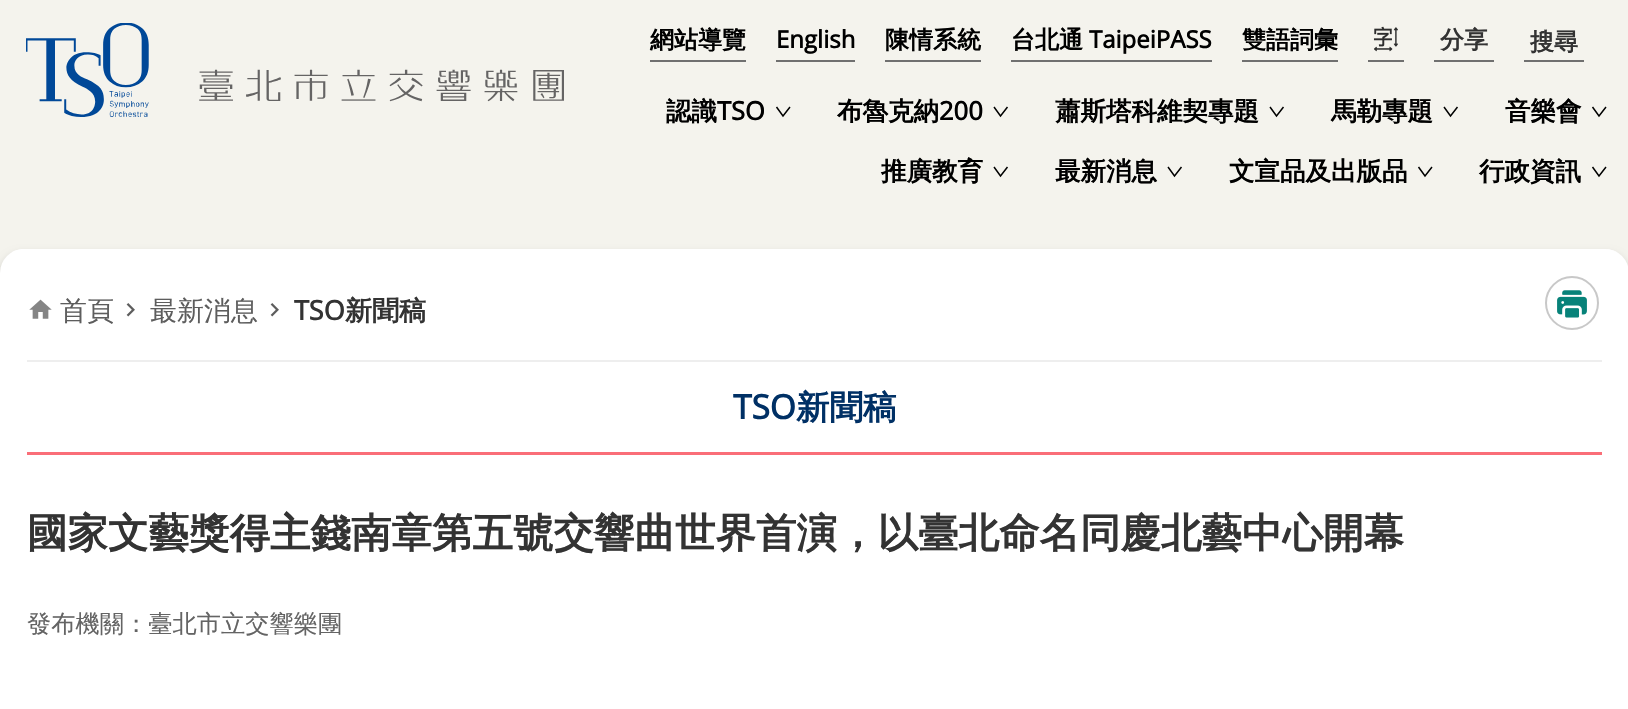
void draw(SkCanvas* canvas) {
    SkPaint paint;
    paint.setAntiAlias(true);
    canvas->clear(0xFFF4F3ED);
    canvas->drawImageRect(SkImages::DeferredFromEncodedData(SkData::MakeFromFileName("img1.png")), SkRect::MakeXYWH(26, 23, 538, 94), SkSamplingOptions());
    paint.setColor(0xFF707070);
    canvas->drawRect(SkRect::MakeXYWH(650, 60, 96, 2), paint);
    SkFont font1(fontMgr->matchFamilyStyle("WenQuanYi Zen Hei", SkFontStyle::Bold()), 24);
    font1.setSubpixel(true);
    paint.setColor(0xFF000000);
    canvas->drawString("網站導覽", 650, 48, font1, paint);
    paint.setColor(0xFF707070);
    canvas->drawRect(SkRect::MakeXYWH(776, 60, 79, 2), paint);
    SkFont font2(fontMgr->matchFamilyStyle("Open Sans", SkFontStyle::Bold()), 24);
    font2.setSubpixel(true);
    paint.setColor(0xFF000000);
    canvas->drawString("English", 776, 48, font2, paint);
    paint.setColor(0xFF707070);
    canvas->drawRect(SkRect::MakeXYWH(885, 60, 96, 2), paint);
    paint.setColor(0xFF000000);
    canvas->drawString("陳情系統", 885, 48, font1, paint);
    paint.setColor(0xFF707070);
    canvas->drawRect(SkRect::MakeXYWH(1011, 60, 201, 2), paint);
    paint.setColor(0xFF000000);
    canvas->drawString("台北通", 1011, 48, font1, paint);
    canvas->drawString("TaipeiPASS", 1089, 48, font2, paint);
    paint.setColor(0xFF707070);
    canvas->drawRect(SkRect::MakeXYWH(1242, 60, 96, 2), paint);
    paint.setColor(0xFF000000);
    canvas->drawString("雙語詞彙", 1242, 48, font1, paint);
    paint.setColor(0xFF707070);
    canvas->drawRect(SkRect::MakeXYWH(1368, 60, 36, 2), paint);
    canvas->drawImageRect(SkImages::DeferredFromEncodedData(SkData::MakeFromFileName("img2.png")), SkRect::MakeXYWH(1373, 26, 25, 26), SkSamplingOptions());
    canvas->drawRect(SkRect::MakeXYWH(1434, 60, 60, 2), paint);
    paint.setColor(0xFF333333);
    canvas->drawString("分享", 1440, 48, font1, paint);
    paint.setColor(0xFF707070);
    canvas->drawRect(SkRect::MakeXYWH(1524, 60, 60, 2), paint);
    paint.setColor(0xFF333333);
    canvas->drawString("搜尋", 1530, 50, font1, paint);
    SkFont font3(fontMgr->matchFamilyStyle("WenQuanYi Zen Hei", SkFontStyle::Bold()), 25.5f);
    font3.setSubpixel(true);
    paint.setColor(0xFF000000);
    canvas->drawString("認識", 666, 120, font3, paint);
    SkFont font4(fontMgr->matchFamilyStyle("Open Sans", SkFontStyle::Bold()), 25.5f);
    font4.setSubpixel(true);
    canvas->drawString("TSO", 717, 120, font4, paint);
    paint.setStyle(SkPaint::kStroke_Style);
    paint.setStrokeWidth(1.5f);
    canvas->drawPath(SkPathBuilder().moveTo(776.5f, 107).lineTo(783, 116).lineTo(790, 107).detach(), paint);
    paint.setStyle(SkPaint::kFill_Style);
    canvas->drawString("布魯克納", 837, 120, font3, paint);
    canvas->drawString("200", 939, 120, font4, paint);
    paint.setStyle(SkPaint::kStroke_Style);
    canvas->drawPath(SkPathBuilder().moveTo(994, 107).lineTo(1000.5f, 116).lineTo(1007.5f, 107).detach(), paint);
    paint.setStyle(SkPaint::kFill_Style);
    canvas->drawString("蕭斯塔科維契專題", 1055, 120, font3, paint);
    paint.setStyle(SkPaint::kStroke_Style);
    canvas->drawPath(SkPathBuilder().moveTo(1270, 107).lineTo(1276.5f, 116).lineTo(1283.5f, 107).detach(), paint);
    paint.setStyle(SkPaint::kFill_Style);
    canvas->drawString("馬勒專題", 1331, 120, font3, paint);
    paint.setStyle(SkPaint::kStroke_Style);
    canvas->drawPath(SkPathBuilder().moveTo(1444, 107).lineTo(1450.5f, 116).lineTo(1457.5f, 107).detach(), paint);
    paint.setStyle(SkPaint::kFill_Style);
    canvas->drawString("音樂會", 1505, 120, font3, paint);
    paint.setStyle(SkPaint::kStroke_Style);
    canvas->drawPath(SkPathBuilder().moveTo(1592.5f, 107).lineTo(1599, 116).lineTo(1606, 107).detach(), paint);
    paint.setStyle(SkPaint::kFill_Style);
    canvas->drawString("推廣教育", 881, 180, font3, paint);
    paint.setStyle(SkPaint::kStroke_Style);
    canvas->drawPath(SkPathBuilder().moveTo(994, 167).lineTo(1000.5f, 176).lineTo(1007.5f, 167).detach(), paint);
    paint.setStyle(SkPaint::kFill_Style);
    canvas->drawString("最新消息", 1055, 180, font3, paint);
    paint.setStyle(SkPaint::kStroke_Style);
    canvas->drawPath(SkPathBuilder().moveTo(1168, 167).lineTo(1174.5f, 176).lineTo(1181.5f, 167).detach(), paint);
    paint.setStyle(SkPaint::kFill_Style);
    canvas->drawString("文宣品及出版品", 1229, 180, font3, paint);
    paint.setStyle(SkPaint::kStroke_Style);
    canvas->drawPath(SkPathBuilder().moveTo(1418.5f, 167).lineTo(1425, 176).lineTo(1432, 167).detach(), paint);
    paint.setStyle(SkPaint::kFill_Style);
    canvas->drawString("行政資訊", 1479, 180, font3, paint);
    paint.setStyle(SkPaint::kStroke_Style);
    canvas->drawPath(SkPathBuilder().moveTo(1592.5f, 167).lineTo(1599, 176).lineTo(1606, 167).detach(), paint);
    paint.setStyle(SkPaint::kFill_Style);
    paint.setColor(0x33000000);
    paint.setMaskFilter(SkMaskFilter::MakeBlur(kNormal_SkBlurStyle, 4.5f));
    canvas->drawRoundRect(SkRect::MakeXYWH(0, 254, 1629, 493), 24, 24, paint);
    paint.setMaskFilter(nullptr);
    paint.setColor(0xFFFFFFFF);
    canvas->drawRoundRect(SkRect::MakeXYWH(0, 249, 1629, 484), 24, 24, paint);
    canvas->save();
    canvas->clipPath(SkPathBuilder().moveTo(24, 249).lineTo(1605, 249).cubicTo(1618.5f, 249, 1629, 259.5f, 1629, 273).lineTo(1629, 2678).cubicTo(1629, 2691.5f, 1618.5f, 2702, 1605, 2702).lineTo(24, 2702).cubicTo(10.5f, 2702, 0, 2691.5f, 0, 2678).lineTo(0, 273).cubicTo(0, 259.5f, 10.5f, 249, 24, 249).close().detach(), true);
    canvas->drawRect(SkRect::MakeXYWH(12, 249, 1605, 460), paint);
    canvas->restore();
    canvas->drawImageRect(SkImages::DeferredFromEncodedData(SkData::MakeFromFileName("img3.png")), SkRect::MakeXYWH(29, 299, 23, 20), SkSamplingOptions());
    SkFont font5(fontMgr->matchFamilyStyle("WenQuanYi Zen Hei", SkFontStyle(500, SkFontStyle::kNormal_Width, SkFontStyle::kUpright_Slant)), 27);
    font5.setSubpixel(true);
    paint.setColor(0xFF5D5D5D);
    canvas->drawString("首頁", 60, 320, font5, paint);
    canvas->drawImageRect(SkImages::DeferredFromEncodedData(SkData::MakeFromFileName("img4.png")), SkRect::MakeXYWH(126, 303, 9, 14), SkSamplingOptions());
    canvas->drawString("最新消息", 150, 320, font5, paint);
    canvas->drawImageRect(SkImages::DeferredFromEncodedData(SkData::MakeFromFileName("img4.png")), SkRect::MakeXYWH(270, 303, 9, 14), SkSamplingOptions());
    SkFont font6(fontMgr->matchFamilyStyle("Open Sans", SkFontStyle::Bold()), 27);
    font6.setSubpixel(true);
    paint.setColor(0xFF333333);
    canvas->drawString("TSO", 294, 320, font6, paint);
    SkFont font7(fontMgr->matchFamilyStyle("WenQuanYi Zen Hei", SkFontStyle::Bold()), 27);
    font7.setSubpixel(true);
    canvas->drawString("新聞稿", 345, 320, font7, paint);
    paint.setStyle(SkPaint::kStroke_Style);
    paint.setStrokeWidth(2);
    paint.setColor(0xFFC8C8C8);
    canvas->drawCircle(1572, 303, 26, paint);
    canvas->drawImageRect(SkImages::DeferredFromEncodedData(SkData::MakeFromFileName("img5.png")), SkRect::MakeXYWH(1557, 290, 30, 28), SkSamplingOptions());
    paint.setStyle(SkPaint::kFill_Style);
    paint.setColor(0xFFFA6E78);
    canvas->drawRect(SkRect::MakeXYWH(27, 452, 1575, 3), paint);
    paint.setColor(0xFFEEEEEE);
    canvas->drawRect(SkRect::MakeXYWH(27, 360, 1575, 2), paint);
    SkFont font8(fontMgr->matchFamilyStyle("Open Sans", SkFontStyle::Bold()), 33.5f);
    font8.setSubpixel(true);
    paint.setColor(0xFF003065);
    canvas->drawString("TSO", 733, 419, font8, paint);
    SkFont font9(fontMgr->matchFamilyStyle("WenQuanYi Zen Hei", SkFontStyle::Bold()), 33.5f);
    font9.setSubpixel(true);
    canvas->drawString("新聞稿", 796, 419, font9, paint);
    SkFont font10(fontMgr->matchFamilyStyle("WenQuanYi Zen Hei", SkFontStyle::Bold()), 40.5f);
    font10.setSubpixel(true);
    paint.setColor(0xFF333333);
    canvas->drawString("國家文藝獎得主錢南章第五號交響曲世界首演，以臺北命名同慶北藝中心開幕", 27, 547, font10, paint);
    SkFont font11(fontMgr->matchFamilyStyle("WenQuanYi Zen Hei", SkFontStyle(500, SkFontStyle::kNormal_Width, SkFontStyle::kUpright_Slant)), 24.25f);
    font11.setSubpixel(true);
    paint.setColor(0xFF646464);
    canvas->drawString("發布機關：臺北市立交響樂團", 27, 632, font11, paint);
}
